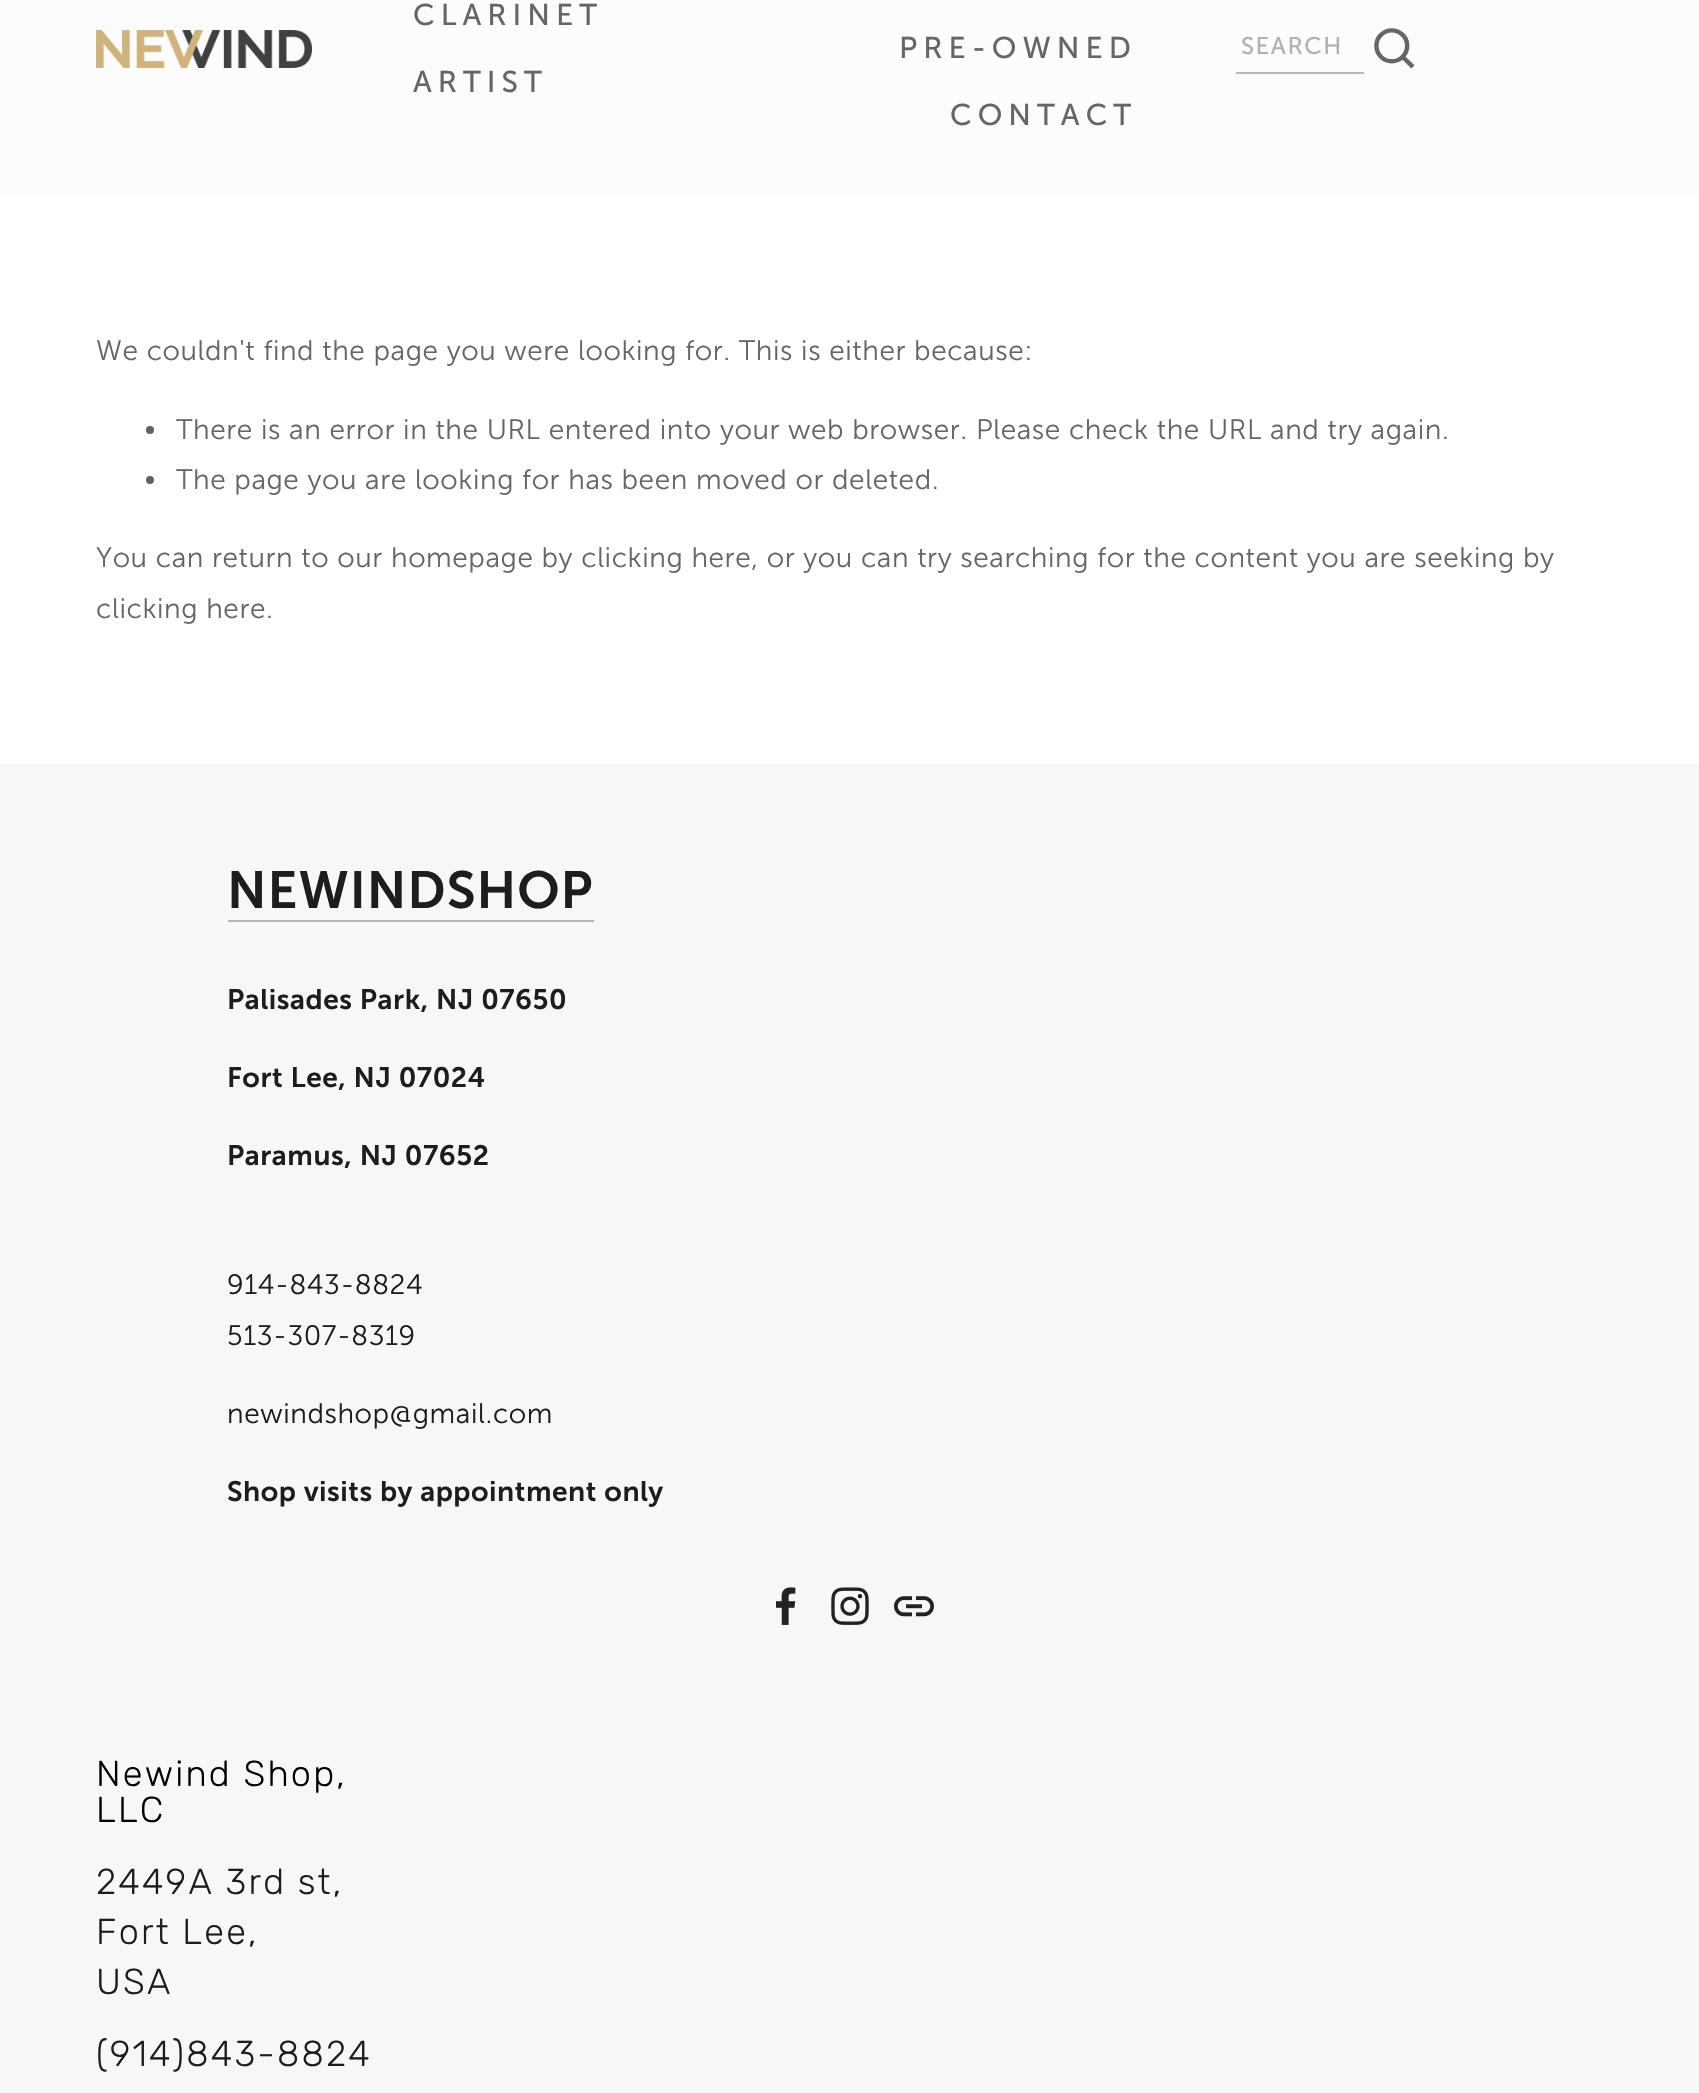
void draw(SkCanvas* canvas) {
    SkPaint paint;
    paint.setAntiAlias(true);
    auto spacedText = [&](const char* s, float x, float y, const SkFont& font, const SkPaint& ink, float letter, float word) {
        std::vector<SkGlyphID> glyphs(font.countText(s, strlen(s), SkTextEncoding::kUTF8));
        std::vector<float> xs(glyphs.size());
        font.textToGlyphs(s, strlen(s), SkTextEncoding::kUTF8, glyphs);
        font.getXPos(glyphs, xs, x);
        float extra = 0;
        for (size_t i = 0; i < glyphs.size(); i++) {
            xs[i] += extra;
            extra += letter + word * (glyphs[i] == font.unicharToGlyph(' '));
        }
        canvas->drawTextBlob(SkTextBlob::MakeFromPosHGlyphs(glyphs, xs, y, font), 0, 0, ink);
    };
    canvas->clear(0xFFF7F7F7);
    paint.setColor(0xFFFCFCFC);
    canvas->drawRect(SkRect::MakeXYWH(0, 0, 1699, 196), paint);
    canvas->drawImageRect(SkImages::DeferredFromEncodedData(SkData::MakeFromFileName("img1.png")), SkRect::MakeXYWH(96, 30, 216, 38), SkSamplingOptions());
    SkFont font1(fontMgr->matchFamilyStyle("Museo Sans", SkFontStyle::Normal()), 30);
    font1.setSubpixel(true);
    paint.setColor(0xFF666666);
    spacedText("CLARINET", 413, 25, font1, paint, 6, 0);
    spacedText("ARTIST", 413, 92, font1, paint, 6, 0);
    spacedText("PRE-OWNED", 899, 58, font1, paint, 6, 0);
    spacedText("CONTACT", 950, 125, font1, paint, 6, 0);
    paint.setColor(0xFFB9B9B9);
    canvas->drawRect(SkRect::MakeXYWH(1236, 72, 128, 2), paint);
    SkFont font2(fontMgr->matchFamilyStyle("Museo Sans", SkFontStyle::Normal()), 24);
    font2.setSubpixel(true);
    paint.setColor(0xFFB1B1B1);
    spacedText("SEARCH", 1241, 54, font2, paint, 1.5f, 0);
    canvas->drawImageRect(SkImages::DeferredFromEncodedData(SkData::MakeFromFileName("img2.png")), SkRect::MakeXYWH(1374, 28, 41, 41), SkSamplingOptions());
    paint.setColor(0xFFFFFFFF);
    canvas->drawRect(SkRect::MakeXYWH(0, 196, 1699, 568), paint);
    SkFont font3(fontMgr->matchFamilyStyle("Museo Sans", SkFontStyle(300, SkFontStyle::kNormal_Width, SkFontStyle::kUpright_Slant)), 28);
    font3.setSubpixel(true);
    paint.setColor(0xFF666666);
    spacedText("We couldn't find the page you were looking for. This is either because:", 96, 360, font3, paint, 0.56f, 0);
    paint.setColor(0xFF616161);
    canvas->drawCircle(150, 430, 4, paint);
    paint.setColor(0xFF666666);
    spacedText("There is an error in the URL entered into your web browser. Please check the URL and try again.", 176, 439, font3, paint, 0.56f, 0);
    paint.setColor(0xFF616161);
    canvas->drawCircle(150, 480, 4, paint);
    paint.setColor(0xFF666666);
    spacedText("The page you are looking for has been moved or deleted.", 176, 489, font3, paint, 0.56f, 0);
    spacedText("You can return to our homepage by clicking here, or you can try searching for the content you are seeking by", 96, 567, font3, paint, 0.56f, 0);
    spacedText("clicking here.", 96, 618, font3, paint, 0.56f, 0);
    SkFont font4(fontMgr->matchFamilyStyle("Museo Sans", SkFontStyle(600, SkFontStyle::kNormal_Width, SkFontStyle::kUpright_Slant)), 52);
    font4.setSubpixel(true);
    paint.setColor(0xFF1D1D1D);
    spacedText("NEWINDSHOP", 227, 908, font4, paint, 1, 0);
    paint.setColor(0xFFB6B6B6);
    canvas->drawRect(SkRect::MakeXYWH(228, 920, 366, 2), paint);
    SkFont font5(fontMgr->matchFamilyStyle("Museo Sans", SkFontStyle(600, SkFontStyle::kNormal_Width, SkFontStyle::kUpright_Slant)), 28);
    font5.setSubpixel(true);
    paint.setColor(0xFF1D1D1D);
    spacedText("Palisades Park, NJ 07650", 227, 1009, font5, paint, 0.56f, 0);
    spacedText("Fort Lee, NJ 07024", 227, 1087, font5, paint, 0.56f, 0);
    spacedText("Paramus, NJ 07652", 227, 1165, font5, paint, 0.56f, 0);
    spacedText("914-843-8824", 227, 1294, font3, paint, 0.56f, 0);
    spacedText("513-307-8319", 227, 1345, font3, paint, 0.56f, 0);
    spacedText("newindshop@gmail.com", 227, 1423, font3, paint, 0.56f, 0);
    spacedText("Shop visits by appointment only", 227, 1501, font5, paint, 0.56f, 0);
    canvas->drawImageRect(SkImages::DeferredFromEncodedData(SkData::MakeFromFileName("img3.png")), SkRect::MakeXYWH(776, 1587, 20, 38), SkSamplingOptions());
    canvas->drawImageRect(SkImages::DeferredFromEncodedData(SkData::MakeFromFileName("img4.png")), SkRect::MakeXYWH(831, 1587, 38, 38), SkSamplingOptions());
    canvas->drawImageRect(SkImages::DeferredFromEncodedData(SkData::MakeFromFileName("img5.png")), SkRect::MakeXYWH(894, 1596, 40, 21), SkSamplingOptions());
    SkFont font6(fontMgr->matchFamilyStyle("Rubik", SkFontStyle(300, SkFontStyle::kNormal_Width, SkFontStyle::kUpright_Slant)), 36);
    font6.setSubpixel(true);
    paint.setColor(0xFF000000);
    spacedText("Newind Shop,", 96, 1786, font6, paint, 2.2f, 0);
    spacedText("LLC", 96, 1822, font6, paint, 2.2f, 0);
    paint.setColor(0xFF1D1D1D);
    spacedText("2449A 3rd st,", 96, 1894, font6, paint, 2.2f, 0);
    spacedText("Fort Lee,", 96, 1944, font6, paint, 2.2f, 0);
    spacedText("USA", 96, 1994, font6, paint, 2.2f, 0);
    spacedText("(914)843-8824", 96, 2066, font6, paint, 2.2f, 0);
}
